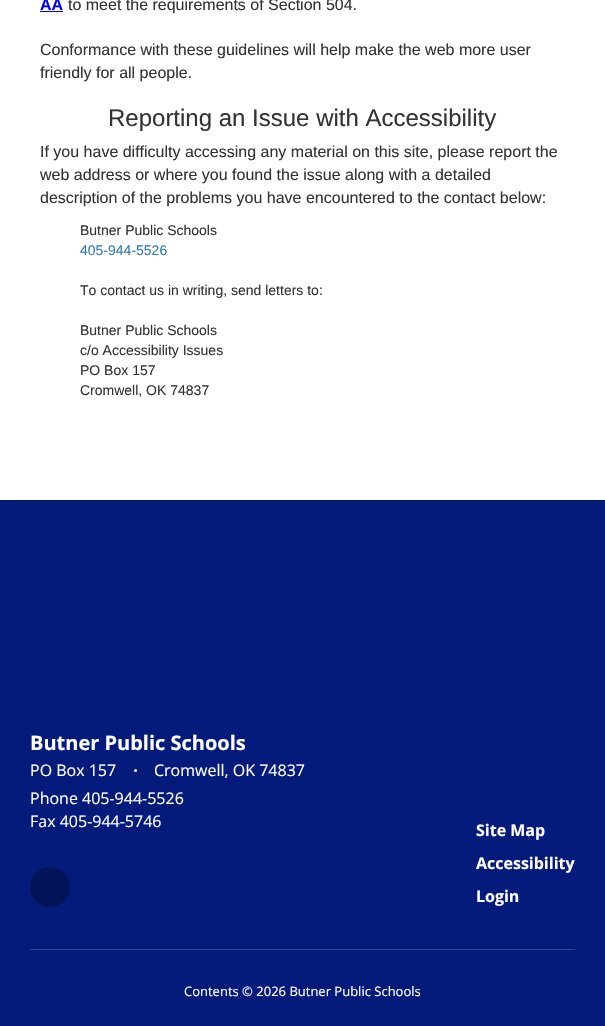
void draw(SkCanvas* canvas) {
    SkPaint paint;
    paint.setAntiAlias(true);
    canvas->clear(0xFFFFFFFF);
    SkFont font1(fontMgr->matchFamilyStyle("Liberation Sans", SkFontStyle::Bold()), 16);
    font1.setSubpixel(true);
    paint.setColor(0xFF0000FF);
    canvas->drawString("AA", 40, 10, font1, paint);
    canvas->drawRect(SkRect::MakeXYWH(40, 11, 23, 1), paint);
    SkFont font2(fontMgr->matchFamilyStyle("Liberation Sans", SkFontStyle::Normal()), 16);
    font2.setSubpixel(true);
    paint.setColor(0xFF333333);
    canvas->drawString("to meet the requirements of Section 504.", 68, 10, font2, paint);
    canvas->drawString("Conformance with these guidelines will help make the web more user", 40, 55, font2, paint);
    canvas->drawString("friendly for all people.", 40, 78, font2, paint);
    SkFont font3(fontMgr->matchFamilyStyle("Liberation Sans", SkFontStyle::Normal()), 24);
    font3.setSubpixel(true);
    canvas->drawString("Reporting an Issue with Accessibility", 108, 126, font3, paint);
    canvas->drawString("If you have difficulty accessing any material on this site, please report the", 40, 157, font2, paint);
    canvas->drawString("web address or where you found the issue along with a detailed", 40, 180, font2, paint);
    canvas->drawString("description of the problems you have encountered to the contact below:", 40, 203, font2, paint);
    SkFont font4(fontMgr->matchFamilyStyle("Liberation Sans", SkFontStyle::Normal()), 14);
    font4.setSubpixel(true);
    canvas->drawString("Butner Public Schools", 80, 235, font4, paint);
    paint.setColor(0xFF337AB7);
    canvas->drawString("405-944-5526", 80, 255, font4, paint);
    paint.setColor(0xFF333333);
    canvas->drawString("To contact us in writing, send letters to:", 80, 295, font4, paint);
    canvas->drawString("Butner Public Schools", 80, 335, font4, paint);
    canvas->drawString("c/o Accessibility Issues", 80, 355, font4, paint);
    canvas->drawString("PO Box 157", 80, 375, font4, paint);
    canvas->drawString("Cromwell, OK 74837", 80, 395, font4, paint);
    paint.setColor(0xFF051B7B);
    canvas->drawRect(SkRect::MakeXYWH(0, 500, 605, 526), paint);
    paint.setColor(0xFF041662);
    canvas->drawRect(SkRect::MakeXYWH(1, 500, 604, 1), paint);
    SkFont font5(fontMgr->matchFamilyStyle("Open Sans", SkFontStyle::Bold()), 20);
    font5.setSubpixel(true);
    paint.setColor(0xFFFFFFFF);
    canvas->drawString("Butner Public Schools", 30, 750, font5, paint);
    SkFont font6(fontMgr->matchFamilyStyle("Open Sans", SkFontStyle::Normal()), 16);
    font6.setSubpixel(true);
    canvas->drawString("PO Box 157", 30, 776, font6, paint);
    canvas->drawCircle(135.5f, 770.5f, 1.5f, paint);
    canvas->drawString("Cromwell, OK 74837", 154, 776, font6, paint);
    canvas->drawString("Phone 405-944-5526", 30, 804, font6, paint);
    canvas->drawString("Fax 405-944-5746", 30, 827, font6, paint);
    paint.setColor(0xFF021358);
    canvas->drawCircle(50, 887, 20, paint);
    SkFont font7(fontMgr->matchFamilyStyle("Open Sans", SkFontStyle::Bold()), 16);
    font7.setSubpixel(true);
    paint.setColor(0xFFFFFFFF);
    canvas->drawString("Site Map", 476, 836, font7, paint);
    canvas->drawString("Accessibility", 476, 869, font7, paint);
    canvas->drawString("Login", 476, 902, font7, paint);
    paint.setColor(0xFF374995);
    canvas->drawRect(SkRect::MakeXYWH(30, 949, 545, 1), paint);
    SkFont font8(fontMgr->matchFamilyStyle("Open Sans", SkFontStyle::Normal()), 13);
    font8.setSubpixel(true);
    paint.setColor(0xFFFFFFFF);
    canvas->drawString("Contents © 2026 Butner Public Schools", 184, 996, font8, paint);
}
